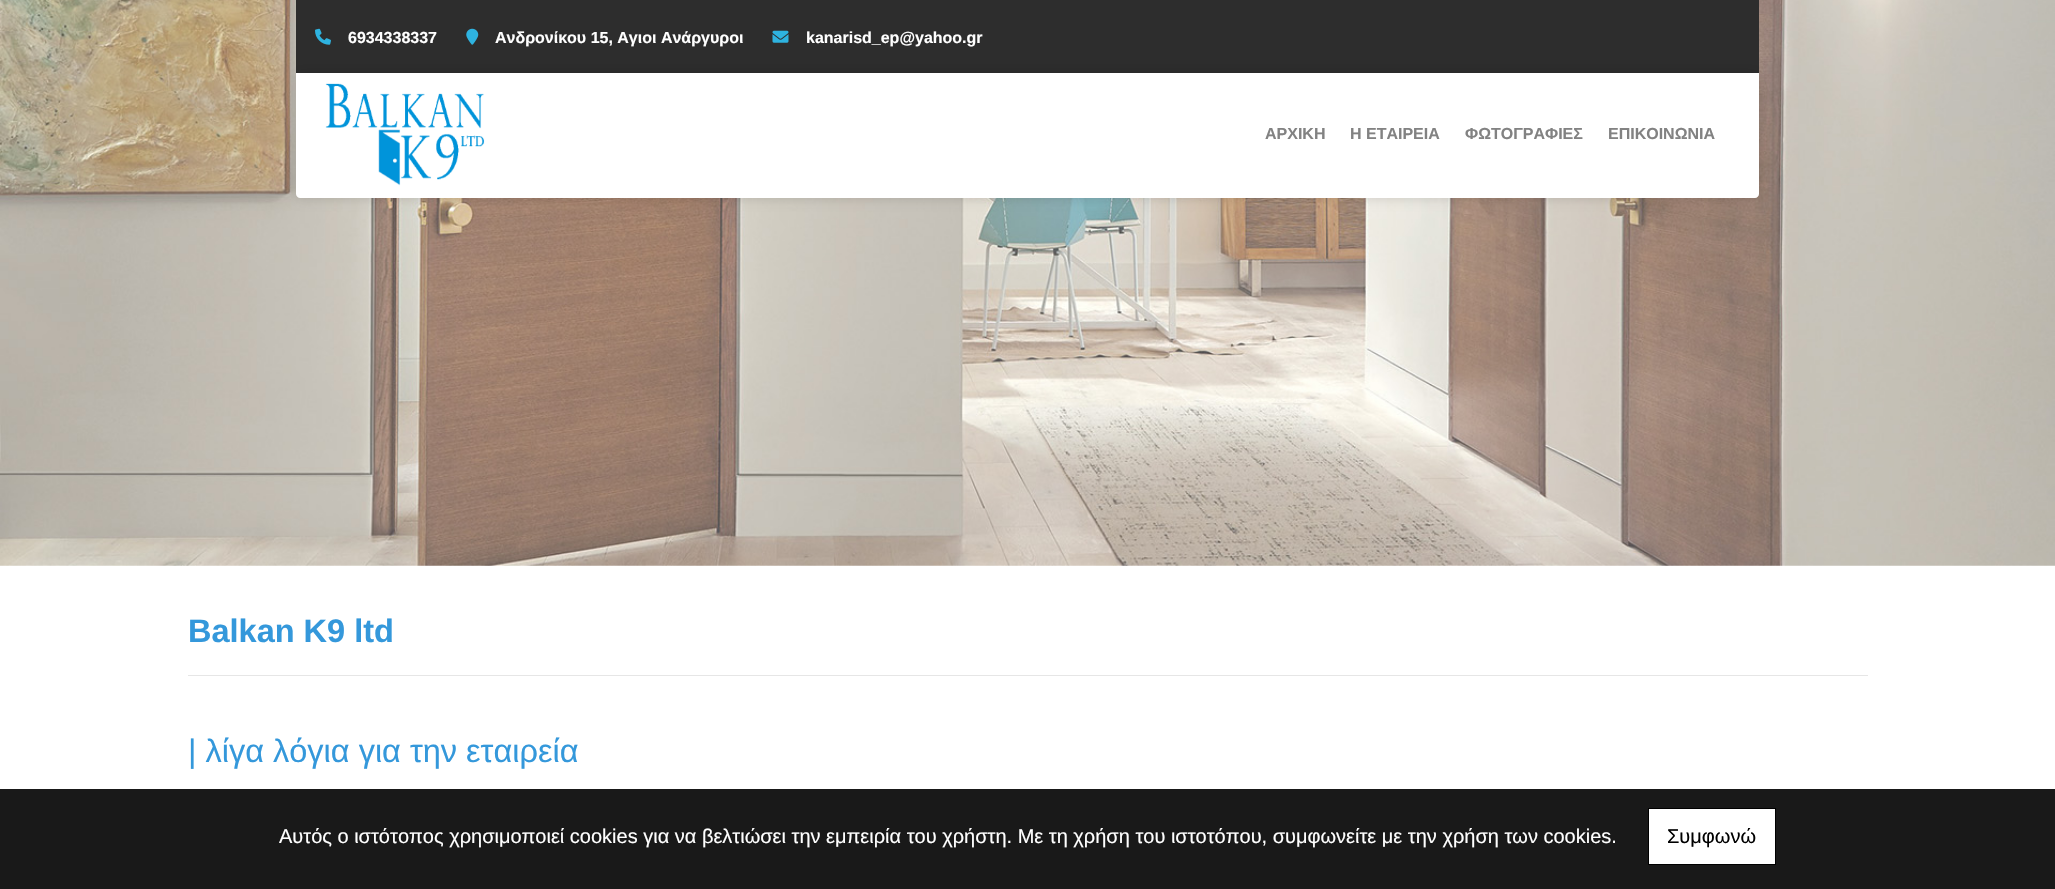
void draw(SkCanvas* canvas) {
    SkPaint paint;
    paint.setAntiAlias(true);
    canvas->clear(0xFFFFFFFF);
    paint.setColor(0xFF191919);
    canvas->drawRect(SkRect::MakeXYWH(0, 789, 2055, 100), paint);
    canvas->drawImageRect(SkImages::DeferredFromEncodedData(SkData::MakeFromFileName("img1.png")), SkRect::MakeXYWH(0, 0, 2055, 566), SkSamplingOptions());
    paint.setColor(0xFF2D2D2D);
    canvas->drawRect(SkRect::MakeXYWH(296, 0, 1463, 73), paint);
    canvas->drawImageRect(SkImages::DeferredFromEncodedData(SkData::MakeFromFileName("img2.png")), SkRect::MakeXYWH(315, 28, 16, 17), SkSamplingOptions());
    SkFont font1(fontMgr->matchFamilyStyle("Arimo", SkFontStyle::Bold()), 16);
    font1.setSubpixel(true);
    paint.setColor(0xFFFFFFFF);
    canvas->drawString("6934338337", 348, 43, font1, paint);
    canvas->drawImageRect(SkImages::DeferredFromEncodedData(SkData::MakeFromFileName("img3.png")), SkRect::MakeXYWH(466, 28, 13, 17), SkSamplingOptions());
    canvas->drawString("Ανδρονίκου 15, Αγιοι Ανάργυροι", 495, 43, font1, paint);
    canvas->drawImageRect(SkImages::DeferredFromEncodedData(SkData::MakeFromFileName("img4.png")), SkRect::MakeXYWH(772, 30, 17, 13), SkSamplingOptions());
    canvas->drawString("kanarisd_ep@yahoo.gr", 806, 43, font1, paint);
    paint.setColor(0x26000000);
    paint.setMaskFilter(SkMaskFilter::MakeBlur(kNormal_SkBlurStyle, 6));
    canvas->drawRoundRect(SkRect::MakeXYWH(296, 73, 1463, 125), 4, 4, paint);
    paint.setMaskFilter(nullptr);
    paint.setColor(0xFFFFFFFF);
    canvas->drawPath(SkPathBuilder().moveTo(296, 73).lineTo(1759, 73).lineTo(1759, 194).cubicTo(1759, 196, 1757, 198, 1755, 198).lineTo(300, 198).cubicTo(298, 198, 296, 196, 296, 194).close().detach(), paint);
    canvas->drawImageRect(SkImages::DeferredFromEncodedData(SkData::MakeFromFileName("img5.png")), SkRect::MakeXYWH(325, 83, 160, 103), SkSamplingOptions());
    paint.setColor(0xFF828282);
    canvas->drawString("ΑΡΧΙΚΗ", 1265, 139, font1, paint);
    canvas->drawString("Η ΕΤΑΙΡΕΙΑ", 1350, 139, font1, paint);
    canvas->drawString("ΦΩΤΟΓΡΑΦΙΕΣ", 1465, 139, font1, paint);
    canvas->drawString("ΕΠΙΚΟΙΝΩΝΙΑ", 1608, 139, font1, paint);
    SkFont font2(fontMgr->matchFamilyStyle("Arimo", SkFontStyle::Bold()), 32.5f);
    font2.setSubpixel(true);
    paint.setColor(0xFF3498DB);
    canvas->drawString("Balkan K9 ltd", 188, 642, font2, paint);
    paint.setColor(0xFFE6E6E6);
    canvas->drawRect(SkRect::MakeXYWH(188, 675, 1680, 1), paint);
    SkFont font3(fontMgr->matchFamilyStyle("Arimo", SkFontStyle::Normal()), 32.5f);
    font3.setSubpixel(true);
    paint.setColor(0xFF3498DB);
    canvas->drawString("| λίγα λόγια για την εταιρεία", 188, 762, font3, paint);
    SkFont font4(fontMgr->matchFamilyStyle("Arimo", SkFontStyle::Normal()), 20);
    font4.setSubpixel(true);
    paint.setColor(0xFFFFFFFF);
    canvas->drawString("Αυτός ο ιστότοπος χρησιμοποιεί cookies για να βελτιώσει την εμπειρία του χρήστη. Με τη χρήση του ιστοτόπου, συμφωνείτε με την χρήση των cookies.", 279, 843, font4, paint);
    canvas->drawRect(SkRect::MakeXYWH(1648.5f, 808.5f, 127, 56), paint);
    paint.setStyle(SkPaint::kStroke_Style);
    paint.setStrokeWidth(1);
    paint.setColor(0xFF000000);
    canvas->drawRect(SkRect::MakeXYWH(1648.5f, 808.5f, 127, 56), paint);
    paint.setStyle(SkPaint::kFill_Style);
    canvas->drawString("Συμφωνώ", 1667, 843, font4, paint);
}
